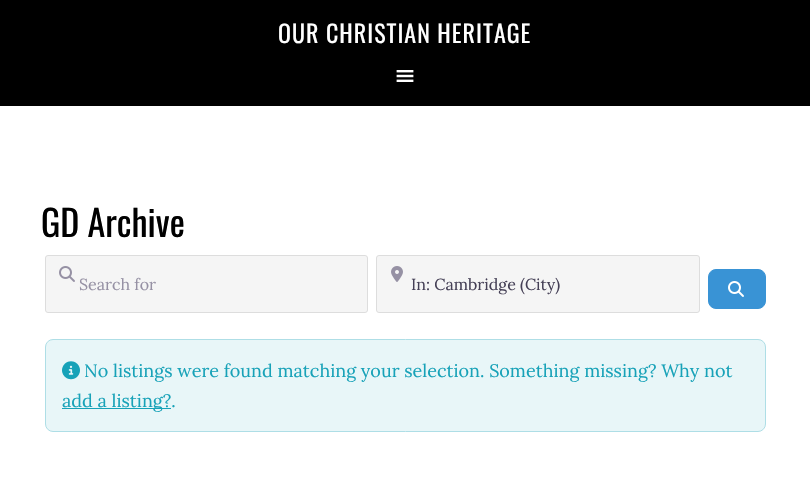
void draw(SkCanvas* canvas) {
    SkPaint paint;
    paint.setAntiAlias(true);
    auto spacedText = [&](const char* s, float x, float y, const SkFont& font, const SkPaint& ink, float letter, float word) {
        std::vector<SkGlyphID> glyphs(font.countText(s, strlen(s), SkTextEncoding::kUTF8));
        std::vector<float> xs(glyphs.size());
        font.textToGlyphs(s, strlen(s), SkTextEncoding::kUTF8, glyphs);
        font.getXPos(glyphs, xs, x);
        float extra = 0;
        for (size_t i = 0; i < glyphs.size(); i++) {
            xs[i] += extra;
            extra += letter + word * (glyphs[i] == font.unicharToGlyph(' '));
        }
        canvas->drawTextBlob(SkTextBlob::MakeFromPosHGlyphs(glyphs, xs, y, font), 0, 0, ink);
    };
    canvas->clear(0xFFFFFFFF);
    paint.setColor(0xFF000000);
    canvas->drawRect(SkRect::MakeXYWH(0, 0, 810, 106), paint);
    SkFont font1(fontMgr->matchFamilyStyle("Oswald", SkFontStyle::Normal()), 24);
    font1.setSubpixel(true);
    paint.setColor(0xFFFFFFFF);
    spacedText("OUR CHRISTIAN HERITAGE", 278, 43, font1, paint, 1, 0);
    canvas->drawImageRect(SkImages::DeferredFromEncodedData(SkData::MakeFromFileName("img1.png")), SkRect::MakeXYWH(396, 70, 18, 12), SkSamplingOptions());
    SkFont font2(fontMgr->matchFamilyStyle("Oswald", SkFontStyle::Normal()), 36);
    font2.setSubpixel(true);
    paint.setColor(0xFF000000);
    canvas->drawString("GD Archive", 41, 237, font2, paint);
    paint.setColor(0xFFF5F5F5);
    canvas->drawRoundRect(SkRect::MakeXYWH(45.5f, 255.5f, 322, 57), 2.5f, 2.5f, paint);
    paint.setStyle(SkPaint::kStroke_Style);
    paint.setStrokeWidth(1);
    paint.setColor(0xFFDDDDDD);
    canvas->drawRoundRect(SkRect::MakeXYWH(45.5f, 255.5f, 322, 57), 2.5f, 2.5f, paint);
    canvas->drawImageRect(SkImages::DeferredFromEncodedData(SkData::MakeFromFileName("img2.png")), SkRect::MakeXYWH(59, 266, 16, 16), SkSamplingOptions());
    SkFont font3(fontMgr->matchFamilyStyle("Lora", SkFontStyle::Normal()), 16);
    font3.setSubpixel(true);
    paint.setStyle(SkPaint::kFill_Style);
    paint.setColor(0xFF9691A4);
    canvas->drawString("Search for", 79, 290, font3, paint);
    paint.setColor(0xFFF5F5F5);
    canvas->drawRoundRect(SkRect::MakeXYWH(376.5f, 255.5f, 323, 57), 2.5f, 2.5f, paint);
    paint.setStyle(SkPaint::kStroke_Style);
    paint.setColor(0xFFDDDDDD);
    canvas->drawRoundRect(SkRect::MakeXYWH(376.5f, 255.5f, 323, 57), 2.5f, 2.5f, paint);
    canvas->drawImageRect(SkImages::DeferredFromEncodedData(SkData::MakeFromFileName("img3.png")), SkRect::MakeXYWH(391, 266, 12, 16), SkSamplingOptions());
    paint.setStyle(SkPaint::kFill_Style);
    paint.setColor(0xFF454056);
    canvas->drawString("In: Cambridge (City)", 411, 290, font3, paint);
    paint.setColor(0xFF3993D5);
    canvas->drawRoundRect(SkRect::MakeXYWH(708.5f, 269.5f, 57, 39), 7.5f, 7.5f, paint);
    paint.setStyle(SkPaint::kStroke_Style);
    canvas->drawRoundRect(SkRect::MakeXYWH(708.5f, 269.5f, 57, 39), 7.5f, 7.5f, paint);
    canvas->drawImageRect(SkImages::DeferredFromEncodedData(SkData::MakeFromFileName("img4.png")), SkRect::MakeXYWH(728, 281, 16, 16), SkSamplingOptions());
    paint.setStyle(SkPaint::kFill_Style);
    paint.setColor(0xFFE8F6F8);
    canvas->drawRoundRect(SkRect::MakeXYWH(45.5f, 339.5f, 720, 92), 7.5f, 7.5f, paint);
    paint.setStyle(SkPaint::kStroke_Style);
    paint.setColor(0xFFAEDEE6);
    canvas->drawRoundRect(SkRect::MakeXYWH(45.5f, 339.5f, 720, 92), 7.5f, 7.5f, paint);
    canvas->drawImageRect(SkImages::DeferredFromEncodedData(SkData::MakeFromFileName("img5.png")), SkRect::MakeXYWH(62, 361, 18, 19), SkSamplingOptions());
    SkFont font4(fontMgr->matchFamilyStyle("Lora", SkFontStyle::Normal()), 18);
    font4.setSubpixel(true);
    paint.setStyle(SkPaint::kFill_Style);
    paint.setColor(0xFF17A2B8);
    canvas->drawString("No listings were found matching your selection. Something missing? Why not", 84, 377, font4, paint);
    canvas->drawRect(SkRect::MakeXYWH(62, 408, 109, 1), paint);
    canvas->drawString("add a listing?.", 62, 407, font4, paint);
}
